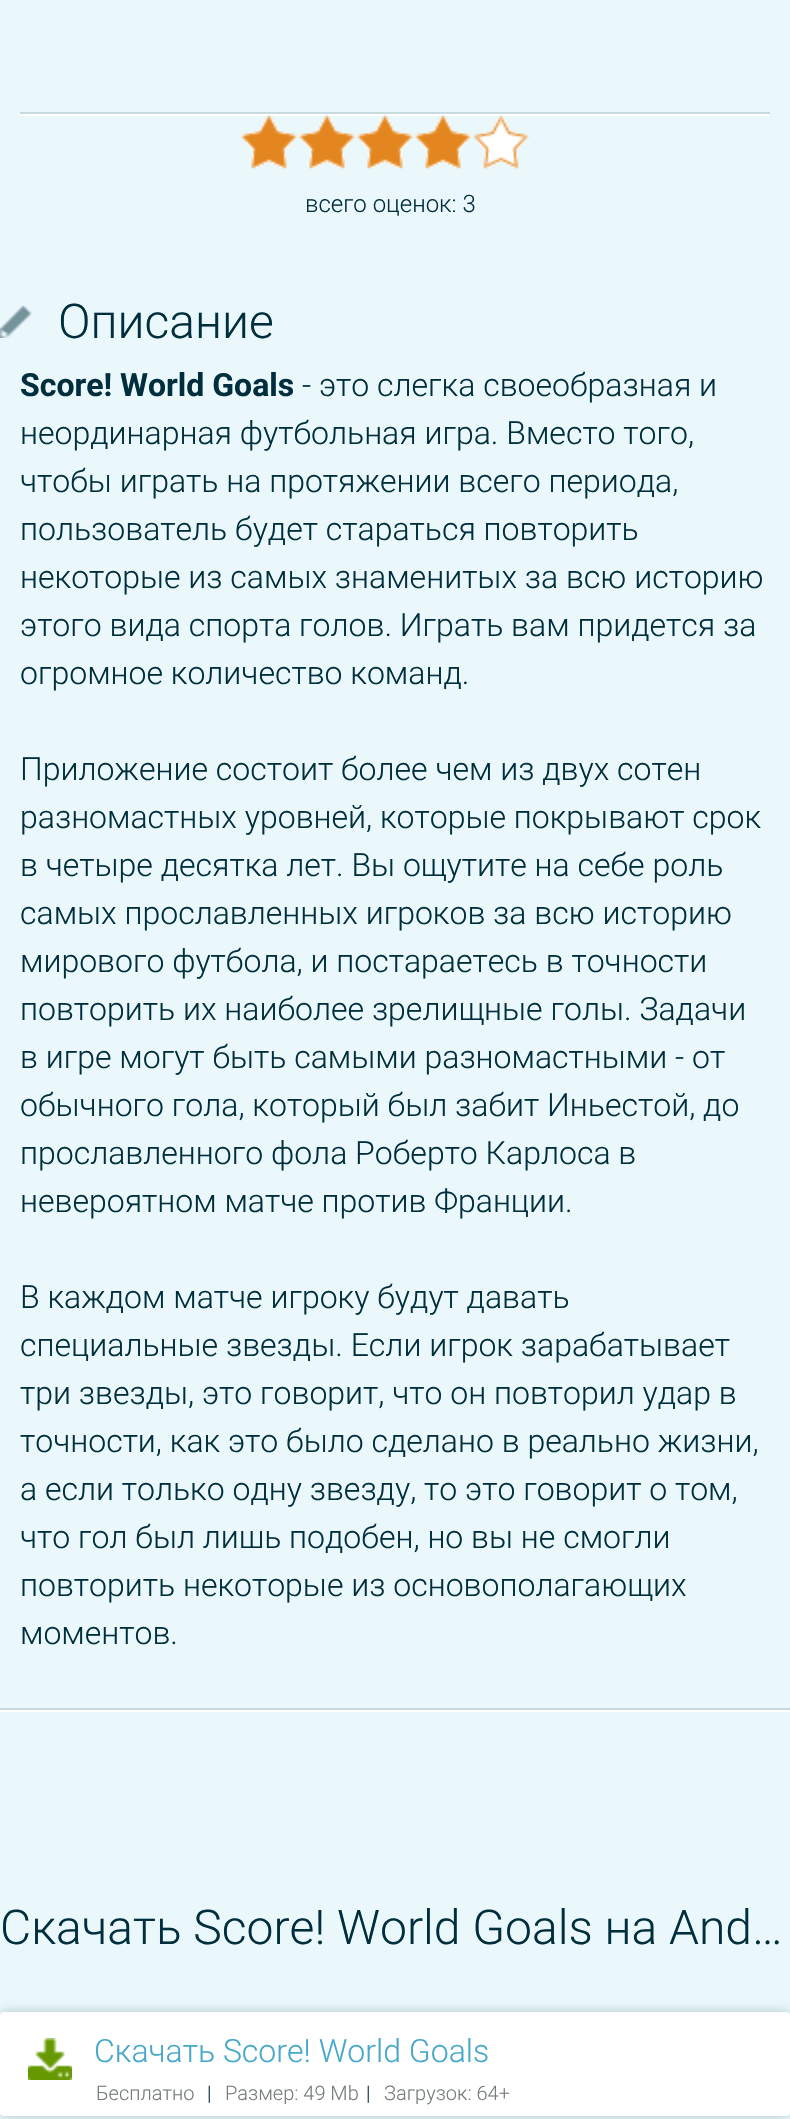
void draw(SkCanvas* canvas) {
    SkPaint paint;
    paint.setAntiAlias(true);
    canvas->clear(0xFFEAF8FB);
    paint.setColor(0xFFFFFFFF);
    canvas->drawRect(SkRect::MakeXYWH(20, 114, 750, 2), paint);
    paint.setColor(0xFFC7DADF);
    canvas->drawRect(SkRect::MakeXYWH(20, 112, 750, 2), paint);
    canvas->drawImageRect(SkImages::DeferredFromEncodedData(SkData::MakeFromFileName("img1.png")), SkRect::MakeXYWH(241, 115, 288, 54), SkSamplingOptions());
    canvas->drawImageRect(SkImages::DeferredFromEncodedData(SkData::MakeFromFileName("img2.png")), SkRect::MakeXYWH(241, 115, 230, 53), SkSamplingOptions());
    SkFont font1(fontMgr->matchFamilyStyle("Roboto", SkFontStyle(300, SkFontStyle::kNormal_Width, SkFontStyle::kUpright_Slant)), 24);
    font1.setSubpixel(true);
    paint.setColor(0xFF002E3D);
    canvas->drawString("всего оценок: 3", 305, 212, font1, paint);
    paint.setColor(0xFFFFFFFF);
    canvas->drawRect(SkRect::MakeXYWH(0, 1710, 790, 2), paint);
    paint.setColor(0xFFC7DADF);
    canvas->drawRect(SkRect::MakeXYWH(0, 1708, 790, 2), paint);
    canvas->drawImageRect(SkImages::DeferredFromEncodedData(SkData::MakeFromFileName("img3.png")), SkRect::MakeXYWH(0, 306, 32, 32), SkSamplingOptions());
    SkFont font2(fontMgr->matchFamilyStyle("Roboto", SkFontStyle(300, SkFontStyle::kNormal_Width, SkFontStyle::kUpright_Slant)), 48);
    font2.setSubpixel(true);
    paint.setColor(0xFF002E3D);
    canvas->drawString("Описание", 58, 338, font2, paint);
    SkFont font3(fontMgr->matchFamilyStyle("Roboto", SkFontStyle::Bold()), 32);
    font3.setSubpixel(true);
    canvas->drawString("Score! World Goals", 20, 396, font3, paint);
    SkFont font4(fontMgr->matchFamilyStyle("Roboto", SkFontStyle(300, SkFontStyle::kNormal_Width, SkFontStyle::kUpright_Slant)), 32);
    font4.setSubpixel(true);
    canvas->drawString("- это слегка своеобразная и", 302, 396, font4, paint);
    canvas->drawString("неординарная футбольная игра. Вместо того,", 20, 444, font4, paint);
    canvas->drawString("чтобы играть на протяжении всего периода,", 20, 492, font4, paint);
    canvas->drawString("пользователь будет стараться повторить", 20, 540, font4, paint);
    canvas->drawString("некоторые из самых знаменитых за всю историю", 20, 588, font4, paint);
    canvas->drawString("этого вида спорта голов. Играть вам придется за", 20, 636, font4, paint);
    canvas->drawString("огромное количество команд.", 20, 684, font4, paint);
    canvas->drawString("Приложение состоит более чем из двух сотен", 20, 780, font4, paint);
    canvas->drawString("разномастных уровней, которые покрывают срок", 20, 828, font4, paint);
    canvas->drawString("в четыре десятка лет. Вы ощутите на себе роль", 20, 876, font4, paint);
    canvas->drawString("самых прославленных игроков за всю историю", 20, 924, font4, paint);
    canvas->drawString("мирового футбола, и постараетесь в точности", 20, 972, font4, paint);
    canvas->drawString("повторить их наиболее зрелищные голы. Задачи", 20, 1020, font4, paint);
    canvas->drawString("в игре могут быть самыми разномастными - от", 20, 1068, font4, paint);
    canvas->drawString("обычного гола, который был забит Иньестой, до", 20, 1116, font4, paint);
    canvas->drawString("прославленного фола Роберто Карлоса в", 20, 1164, font4, paint);
    canvas->drawString("невероятном матче против Франции.", 20, 1212, font4, paint);
    canvas->drawString("В каждом матче игроку будут давать", 20, 1308, font4, paint);
    canvas->drawString("специальные звезды. Если игрок зарабатывает", 20, 1356, font4, paint);
    canvas->drawString("три звезды, это говорит, что он повторил удар в", 20, 1404, font4, paint);
    canvas->drawString("точности, как это было сделано в реально жизни,", 20, 1452, font4, paint);
    canvas->drawString("а если только одну звезду, то это говорит о том,", 20, 1500, font4, paint);
    canvas->drawString("что гол был лишь подобен, но вы не смогли", 20, 1548, font4, paint);
    canvas->drawString("повторить некоторые из основополагающих", 20, 1596, font4, paint);
    canvas->drawString("моментов.", 20, 1644, font4, paint);
    canvas->drawString("Скачать Score! World Goals на And…", 0, 1944, font2, paint);
    paint.setColor(0x40002E3D);
    paint.setMaskFilter(SkMaskFilter::MakeBlur(kNormal_SkBlurStyle, 6));
    canvas->drawRoundRect(SkRect::MakeXYWH(0, 2012, 790, 104), 4, 4, paint);
    paint.setMaskFilter(nullptr);
    paint.setColor(0xFFFFFFFF);
    canvas->drawRoundRect(SkRect::MakeXYWH(0, 2012, 790, 104), 4, 4, paint);
    canvas->drawImageRect(SkImages::DeferredFromEncodedData(SkData::MakeFromFileName("img4.png")), SkRect::MakeXYWH(28, 2038, 44, 42), SkSamplingOptions());
    paint.setColor(0xFF46A8CA);
    canvas->drawString("Скачать Score! World Goals", 94, 2062, font4, paint);
    SkFont font5(fontMgr->matchFamilyStyle("Roboto", SkFontStyle(300, SkFontStyle::kNormal_Width, SkFontStyle::kUpright_Slant)), 20);
    font5.setSubpixel(true);
    paint.setColor(0xFF767C7E);
    canvas->drawString("Бесплатно", 96, 2100, font5, paint);
    paint.setColor(0xFF002E3D);
    canvas->drawString("|", 207, 2100, font5, paint);
    paint.setColor(0xFF767C7E);
    canvas->drawString("Размер: 49 Mb", 225, 2100, font5, paint);
    paint.setColor(0xFF002E3D);
    canvas->drawString("|", 366, 2100, font5, paint);
    paint.setColor(0xFF767C7E);
    canvas->drawString("Загрузок: 64+", 384, 2100, font5, paint);
}
